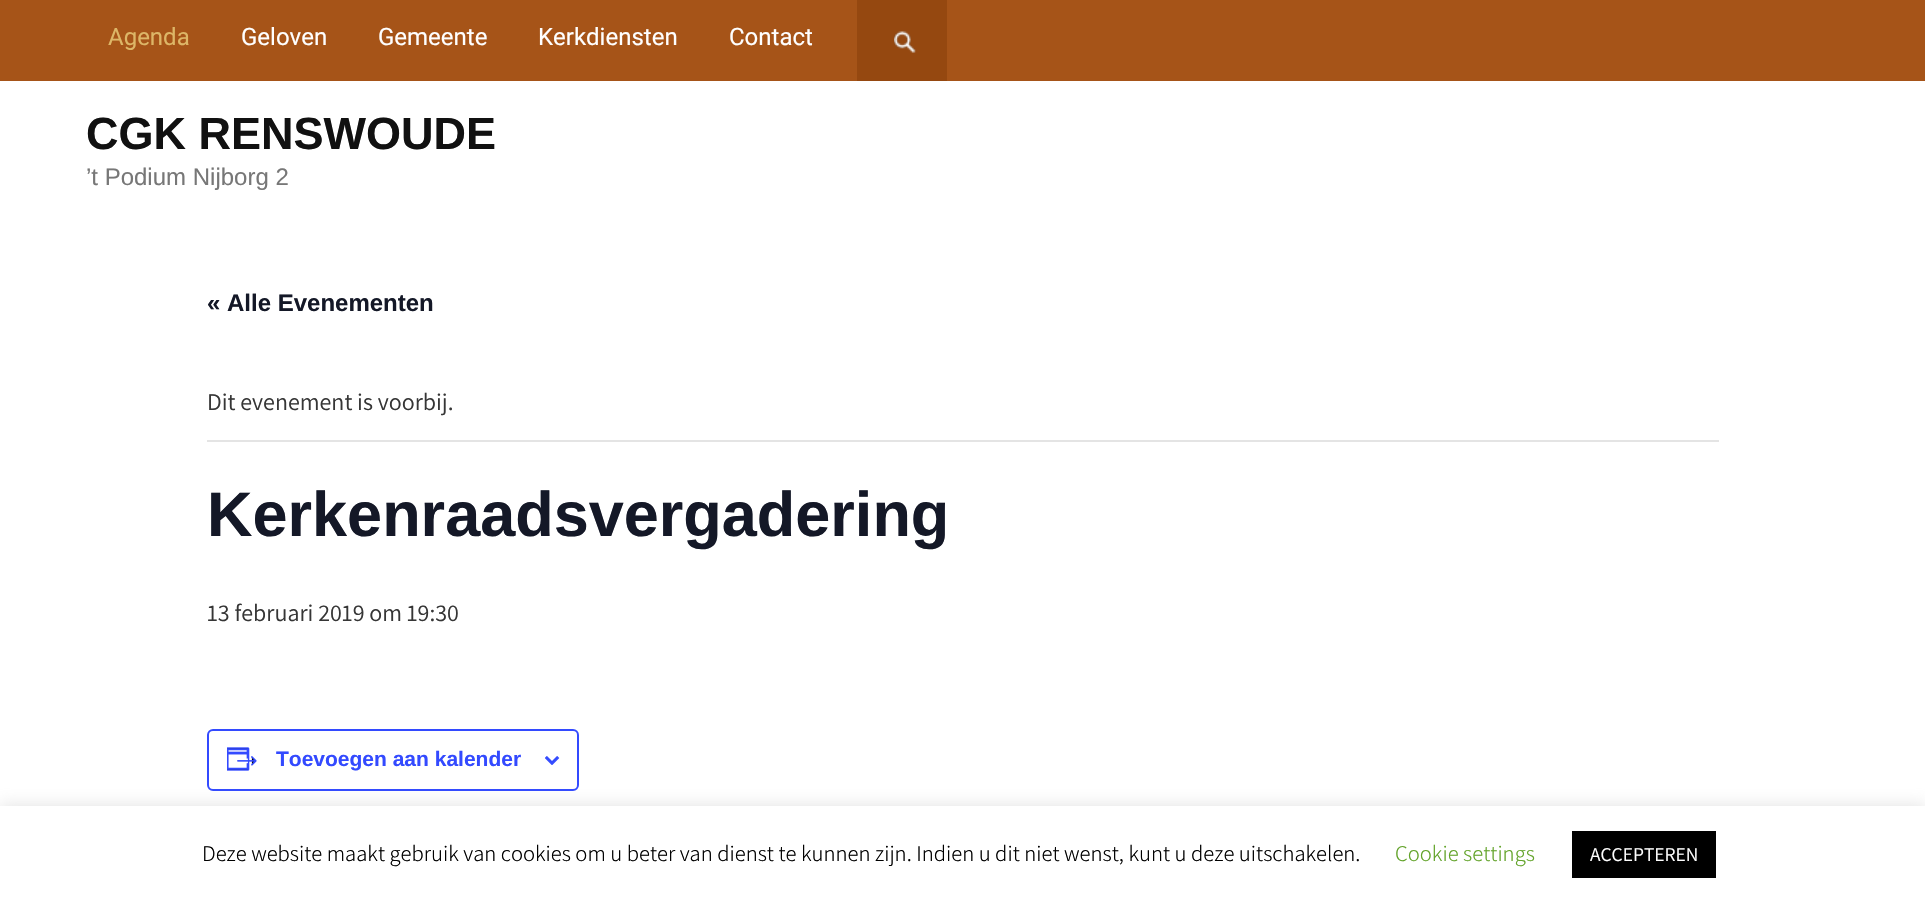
void draw(SkCanvas* canvas) {
    SkPaint paint;
    paint.setAntiAlias(true);
    canvas->clear(0xFFFFFFFF);
    paint.setColor(0xFFA65418);
    canvas->drawRect(SkRect::MakeXYWH(0, 0, 1925, 81), paint);
    SkFont font1(fontMgr->matchFamilyStyle("Roboto", SkFontStyle::Normal()), 24);
    font1.setSubpixel(true);
    paint.setColor(0xFFDDB667);
    canvas->drawString("Agenda", 108, 45, font1, paint);
    paint.setColor(0xFFFFFFFF);
    canvas->drawString("Geloven", 241, 45, font1, paint);
    canvas->drawString("Gemeente", 378, 45, font1, paint);
    canvas->drawString("Kerkdiensten", 538, 45, font1, paint);
    canvas->drawString("Contact", 729, 45, font1, paint);
    paint.setColor(0xFF954810);
    canvas->drawRect(SkRect::MakeXYWH(857, 0, 90, 81), paint);
    canvas->drawImageRect(SkImages::DeferredFromEncodedData(SkData::MakeFromFileName("img1.png")), SkRect::MakeXYWH(894, 31, 22, 22), SkSamplingOptions());
    SkFont font2(fontMgr->matchFamilyStyle("Liberation Sans", SkFontStyle::Bold()), 45);
    font2.setSubpixel(true);
    paint.setColor(0xFF111111);
    canvas->drawString("CGK RENSWOUDE", 86, 149, font2, paint);
    SkFont font3(fontMgr->matchFamilyStyle("Liberation Sans", SkFontStyle::Normal()), 24);
    font3.setSubpixel(true);
    paint.setColor(0xFF777777);
    canvas->drawString("’t Podium Nijborg 2", 86, 185, font3, paint);
    SkFont font4(fontMgr->matchFamilyStyle("Liberation Sans", SkFontStyle::Bold()), 24);
    font4.setSubpixel(true);
    paint.setColor(0xFF141827);
    canvas->drawString("« Alle Evenementen", 207, 311, font4, paint);
    paint.setColor(0xFFE4E4E4);
    canvas->drawRect(SkRect::MakeXYWH(207, 440, 1512, 2), paint);
    SkFont font5(fontMgr->matchFamilyStyle("Assistant", SkFontStyle::Normal()), 24);
    font5.setSubpixel(true);
    paint.setColor(0xFF363636);
    canvas->drawString("Dit evenement is voorbij.", 207, 410, font5, paint);
    SkFont font6(fontMgr->matchFamilyStyle("Liberation Sans", SkFontStyle::Bold()), 63);
    font6.setSubpixel(true);
    paint.setColor(0xFF141827);
    canvas->drawString("Kerkenraadsvergadering", 207, 536, font6, paint);
    paint.setColor(0xFF363636);
    canvas->drawString("13 februari 2019 om 19:30", 207, 621, font5, paint);
    paint.setStyle(SkPaint::kStroke_Style);
    paint.setStrokeWidth(2);
    paint.setColor(0xFF334AFF);
    canvas->drawRoundRect(SkRect::MakeXYWH(208, 730, 370, 60), 5, 5, paint);
    canvas->drawImageRect(SkImages::DeferredFromEncodedData(SkData::MakeFromFileName("img2.png")), SkRect::MakeXYWH(227, 747, 30, 24), SkSamplingOptions());
    SkFont font7(fontMgr->matchFamilyStyle("Liberation Sans", SkFontStyle::Bold()), 21);
    font7.setSubpixel(true);
    paint.setStyle(SkPaint::kFill_Style);
    canvas->drawString("Toevoegen aan kalender", 276, 766, font7, paint);
    canvas->drawImageRect(SkImages::DeferredFromEncodedData(SkData::MakeFromFileName("img3.png")), SkRect::MakeXYWH(545, 756, 15, 9), SkSamplingOptions());
    paint.setColor(0x4DACABAB);
    paint.setMaskFilter(SkMaskFilter::MakeBlur(kNormal_SkBlurStyle, 7.5f));
    canvas->drawRect(SkRect::MakeXYWH(0, 804, 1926, 98), paint);
    paint.setMaskFilter(nullptr);
    paint.setColor(0xFFFFFFFF);
    canvas->drawRect(SkRect::MakeXYWH(0, 806, 1925, 96), paint);
    SkFont font8(fontMgr->matchFamilyStyle("Assistant", SkFontStyle(300, SkFontStyle::kNormal_Width, SkFontStyle::kUpright_Slant)), 22.5f);
    font8.setSubpixel(true);
    paint.setColor(0xFF000000);
    canvas->drawString("Deze website maakt gebruik van cookies om u beter van dienst te kunnen zijn. Indien u dit niet wenst, kunt u deze uitschakelen.", 202, 861, font8, paint);
    paint.setColor(0xFF62A329);
    canvas->drawString("Cookie settings", 1395, 861, font8, paint);
    paint.setColor(0xFF000000);
    canvas->drawRect(SkRect::MakeXYWH(1572, 831, 144, 47), paint);
    SkFont font9(fontMgr->matchFamilyStyle("Assistant", SkFontStyle::Normal()), 19.5f);
    font9.setSubpixel(true);
    paint.setColor(0xFFFFFFFF);
    canvas->drawString("ACCEPTEREN", 1590, 861, font9, paint);
}
